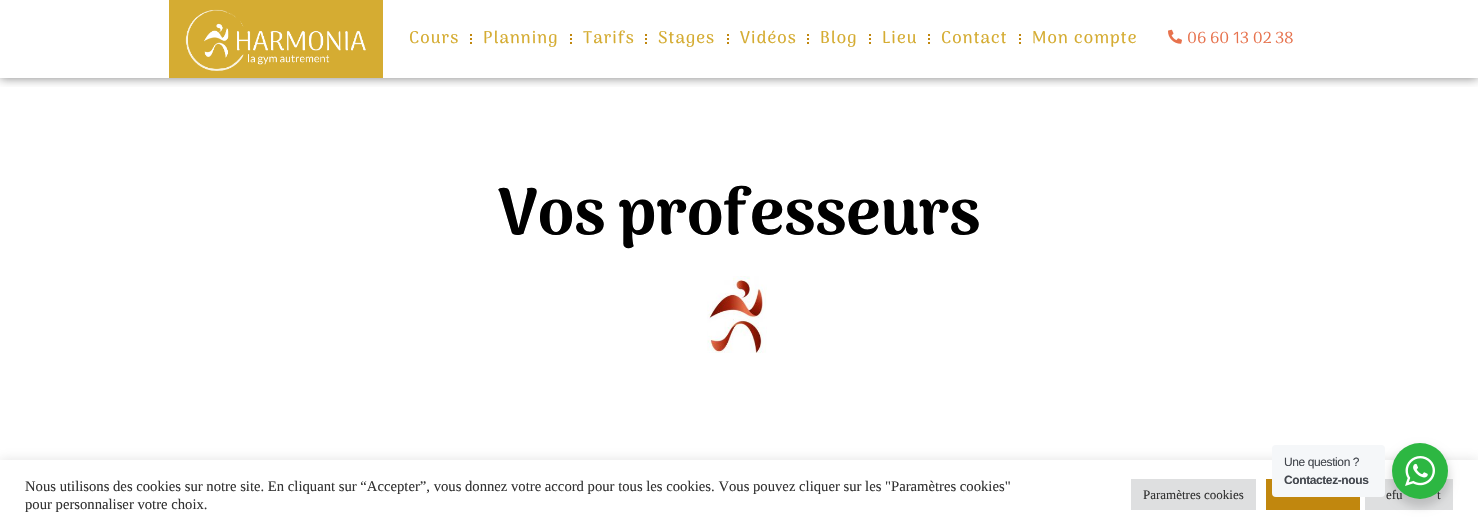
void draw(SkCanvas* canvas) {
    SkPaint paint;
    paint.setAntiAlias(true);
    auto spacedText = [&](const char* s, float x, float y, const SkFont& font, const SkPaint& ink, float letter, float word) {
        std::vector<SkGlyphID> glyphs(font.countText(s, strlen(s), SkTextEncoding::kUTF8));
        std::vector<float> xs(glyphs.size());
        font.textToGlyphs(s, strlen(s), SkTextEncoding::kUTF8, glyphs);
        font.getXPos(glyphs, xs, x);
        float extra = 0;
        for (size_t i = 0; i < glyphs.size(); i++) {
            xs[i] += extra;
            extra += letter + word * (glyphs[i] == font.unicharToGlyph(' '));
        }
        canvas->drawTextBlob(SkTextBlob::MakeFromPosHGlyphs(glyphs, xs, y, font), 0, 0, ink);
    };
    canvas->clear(0xFFFFFFFF);
    canvas->save();
    canvas->clipRect(SkRect::MakeXYWH(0, 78, 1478, 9));
    paint.setColor(0x80000000);
    paint.setMaskFilter(SkMaskFilter::MakeBlur(kNormal_SkBlurStyle, 5));
    canvas->drawRect(SkRect::MakeXYWH(0, 0, 1478, 78), paint);
    paint.setMaskFilter(nullptr);
    canvas->restore();
    paint.setColor(0xFFD5AC32);
    canvas->drawRect(SkRect::MakeXYWH(169, 0, 214, 78), paint);
    canvas->drawImageRect(SkImages::DeferredFromEncodedData(SkData::MakeFromFileName("img1.png")), SkRect::MakeXYWH(185, 9, 181, 62), SkSamplingOptions());
    SkFont font1(fontMgr->matchFamilyStyle("Arima", SkFontStyle(500, SkFontStyle::kNormal_Width, SkFontStyle::kUpright_Slant)), 17);
    font1.setSubpixel(true);
    spacedText("Cours", 409, 43, font1, paint, 1.1f, 0);
    paint.setStyle(SkPaint::kStroke_Style);
    paint.setStrokeWidth(2);
    paint.setColor(0xFFC1870E);
    canvas->drawPath(SkPathBuilder().moveTo(471, 34).lineTo(471, 36).moveTo(471, 38).lineTo(471, 40).moveTo(471, 42).lineTo(471, 44).detach(), paint);
    paint.setStyle(SkPaint::kFill_Style);
    paint.setColor(0xFFD5AC32);
    spacedText("Planning", 483, 43, font1, paint, 1.1f, 0);
    paint.setStyle(SkPaint::kStroke_Style);
    paint.setColor(0xFFC1870E);
    canvas->drawPath(SkPathBuilder().moveTo(571, 34).lineTo(571, 36).moveTo(571, 38).lineTo(571, 40).moveTo(571, 42).lineTo(571, 44).detach(), paint);
    paint.setStyle(SkPaint::kFill_Style);
    paint.setColor(0xFFD5AC32);
    spacedText("Tarifs", 583, 43, font1, paint, 1.1f, 0);
    paint.setStyle(SkPaint::kStroke_Style);
    paint.setColor(0xFFC1870E);
    canvas->drawPath(SkPathBuilder().moveTo(646, 34).lineTo(646, 36).moveTo(646, 38).lineTo(646, 40).moveTo(646, 42).lineTo(646, 44).detach(), paint);
    paint.setStyle(SkPaint::kFill_Style);
    paint.setColor(0xFFD5AC32);
    spacedText("Stages", 658, 43, font1, paint, 1.1f, 0);
    paint.setStyle(SkPaint::kStroke_Style);
    paint.setColor(0xFFC1870E);
    canvas->drawPath(SkPathBuilder().moveTo(728, 34).lineTo(728, 36).moveTo(728, 38).lineTo(728, 40).moveTo(728, 42).lineTo(728, 44).detach(), paint);
    paint.setStyle(SkPaint::kFill_Style);
    paint.setColor(0xFFD5AC32);
    spacedText("Vidéos", 740, 43, font1, paint, 1.1f, 0);
    paint.setStyle(SkPaint::kStroke_Style);
    paint.setColor(0xFFC1870E);
    canvas->drawPath(SkPathBuilder().moveTo(808, 34).lineTo(808, 36).moveTo(808, 38).lineTo(808, 40).moveTo(808, 42).lineTo(808, 44).detach(), paint);
    paint.setStyle(SkPaint::kFill_Style);
    paint.setColor(0xFFD5AC32);
    spacedText("Blog", 820, 43, font1, paint, 1.1f, 0);
    paint.setStyle(SkPaint::kStroke_Style);
    paint.setColor(0xFFC1870E);
    canvas->drawPath(SkPathBuilder().moveTo(870, 34).lineTo(870, 36).moveTo(870, 38).lineTo(870, 40).moveTo(870, 42).lineTo(870, 44).detach(), paint);
    paint.setStyle(SkPaint::kFill_Style);
    paint.setColor(0xFFD5AC32);
    spacedText("Lieu", 882, 43, font1, paint, 1.1f, 0);
    paint.setStyle(SkPaint::kStroke_Style);
    paint.setColor(0xFFC1870E);
    canvas->drawPath(SkPathBuilder().moveTo(929, 34).lineTo(929, 36).moveTo(929, 38).lineTo(929, 40).moveTo(929, 42).lineTo(929, 44).detach(), paint);
    paint.setStyle(SkPaint::kFill_Style);
    paint.setColor(0xFFD5AC32);
    spacedText("Contact", 941, 43, font1, paint, 1.1f, 0);
    paint.setStyle(SkPaint::kStroke_Style);
    paint.setColor(0xFFC1870E);
    canvas->drawPath(SkPathBuilder().moveTo(1020, 34).lineTo(1020, 36).moveTo(1020, 38).lineTo(1020, 40).moveTo(1020, 42).lineTo(1020, 44).detach(), paint);
    paint.setStyle(SkPaint::kFill_Style);
    paint.setColor(0xFFD5AC32);
    spacedText("Mon compte", 1032, 43, font1, paint, 1.1f, 0);
    canvas->drawImageRect(SkImages::DeferredFromEncodedData(SkData::MakeFromFileName("img2.png")), SkRect::MakeXYWH(1168, 29, 14, 15), SkSamplingOptions());
    SkFont font2(fontMgr->matchFamilyStyle("Arima", SkFontStyle::Normal()), 16);
    font2.setSubpixel(true);
    paint.setColor(0xFFE7724D);
    canvas->drawString("06 60 13 02 38", 1187, 43, font2, paint);
    SkFont font3(fontMgr->matchFamilyStyle("Arima", SkFontStyle::Bold()), 65);
    font3.setSubpixel(true);
    paint.setColor(0xFF000000);
    canvas->drawString("Vos professeurs", 498, 234, font3, paint);
    canvas->drawImageRect(SkImages::DeferredFromEncodedData(SkData::MakeFromFileName("img3.png")), SkRect::MakeXYWH(707, 276, 60, 77), SkSamplingOptions());
    paint.setColor(0x4DACABAB);
    paint.setMaskFilter(SkMaskFilter::MakeBlur(kNormal_SkBlurStyle, 5));
    canvas->drawRect(SkRect::MakeXYWH(0, 459, 1478, 69), paint);
    paint.setMaskFilter(nullptr);
    paint.setColor(0xFFFFFFFF);
    canvas->drawRect(SkRect::MakeXYWH(0, 460, 1478, 69), paint);
    paint.setColor(0xFFDEDFE0);
    canvas->drawRect(SkRect::MakeXYWH(1365, 479, 88, 31), paint);
    paint.setColor(0x24000000);
    paint.setMaskFilter(SkMaskFilter::MakeBlur(kNormal_SkBlurStyle, 4));
    canvas->drawRoundRect(SkRect::MakeXYWH(1390, 447, 60, 60), 30, 30, paint);
    paint.setMaskFilter(nullptr);
    paint.setColor(0xFFC1870E);
    canvas->drawRect(SkRect::MakeXYWH(1266, 479, 94, 31), paint);
    paint.setColor(0xFFF5F7F9);
    canvas->drawRoundRect(SkRect::MakeXYWH(1272, 445, 113, 52), 4, 4, paint);
    SkFont font4(fontMgr->matchFamilyStyle("Liberation Sans", SkFontStyle::Normal()), 12);
    font4.setSubpixel(true);
    paint.setColor(0xFF43474E);
    spacedText("Une question ?", 1284, 466, font4, paint, -0.4f, 0);
    SkFont font5(fontMgr->matchFamilyStyle("Liberation Sans", SkFontStyle::Bold()), 12);
    font5.setSubpixel(true);
    spacedText("Contactez-nous", 1284, 484, font5, paint, -0.4f, 0);
    SkFont font6(fontMgr->matchFamilyStyle("Liberation Serif", SkFontStyle::Normal()), 13);
    font6.setSubpixel(true);
    paint.setColor(0xFF333333);
    canvas->drawString("efu", 1386, 499, font6, paint);
    canvas->drawString("t", 1437, 499, font6, paint);
    paint.setColor(0xFF2DB742);
    canvas->drawCircle(1420, 471, 28, paint);
    canvas->drawImageRect(SkImages::DeferredFromEncodedData(SkData::MakeFromFileName("img4.png")), SkRect::MakeXYWH(1405, 456, 30, 30), SkSamplingOptions());
    SkFont font7(fontMgr->matchFamilyStyle("Liberation Serif", SkFontStyle::Normal()), 14.67f);
    font7.setSubpixel(true);
    paint.setColor(0xFF333333);
    canvas->drawString("Nous utilisons des cookies sur notre site. En cliquant sur “Accepter”, vous donnez votre accord pour tous les cookies. Vous pouvez cliquer sur les \"Paramètres cookies\"", 25, 491, font7, paint);
    canvas->drawString("pour personnaliser votre choix.", 25, 509, font7, paint);
    paint.setColor(0xFFDEDFE0);
    canvas->drawRect(SkRect::MakeXYWH(1131, 479, 125, 31), paint);
    paint.setColor(0xFF333333);
    canvas->drawString("Paramètres cookies", 1143, 499, font6, paint);
}
